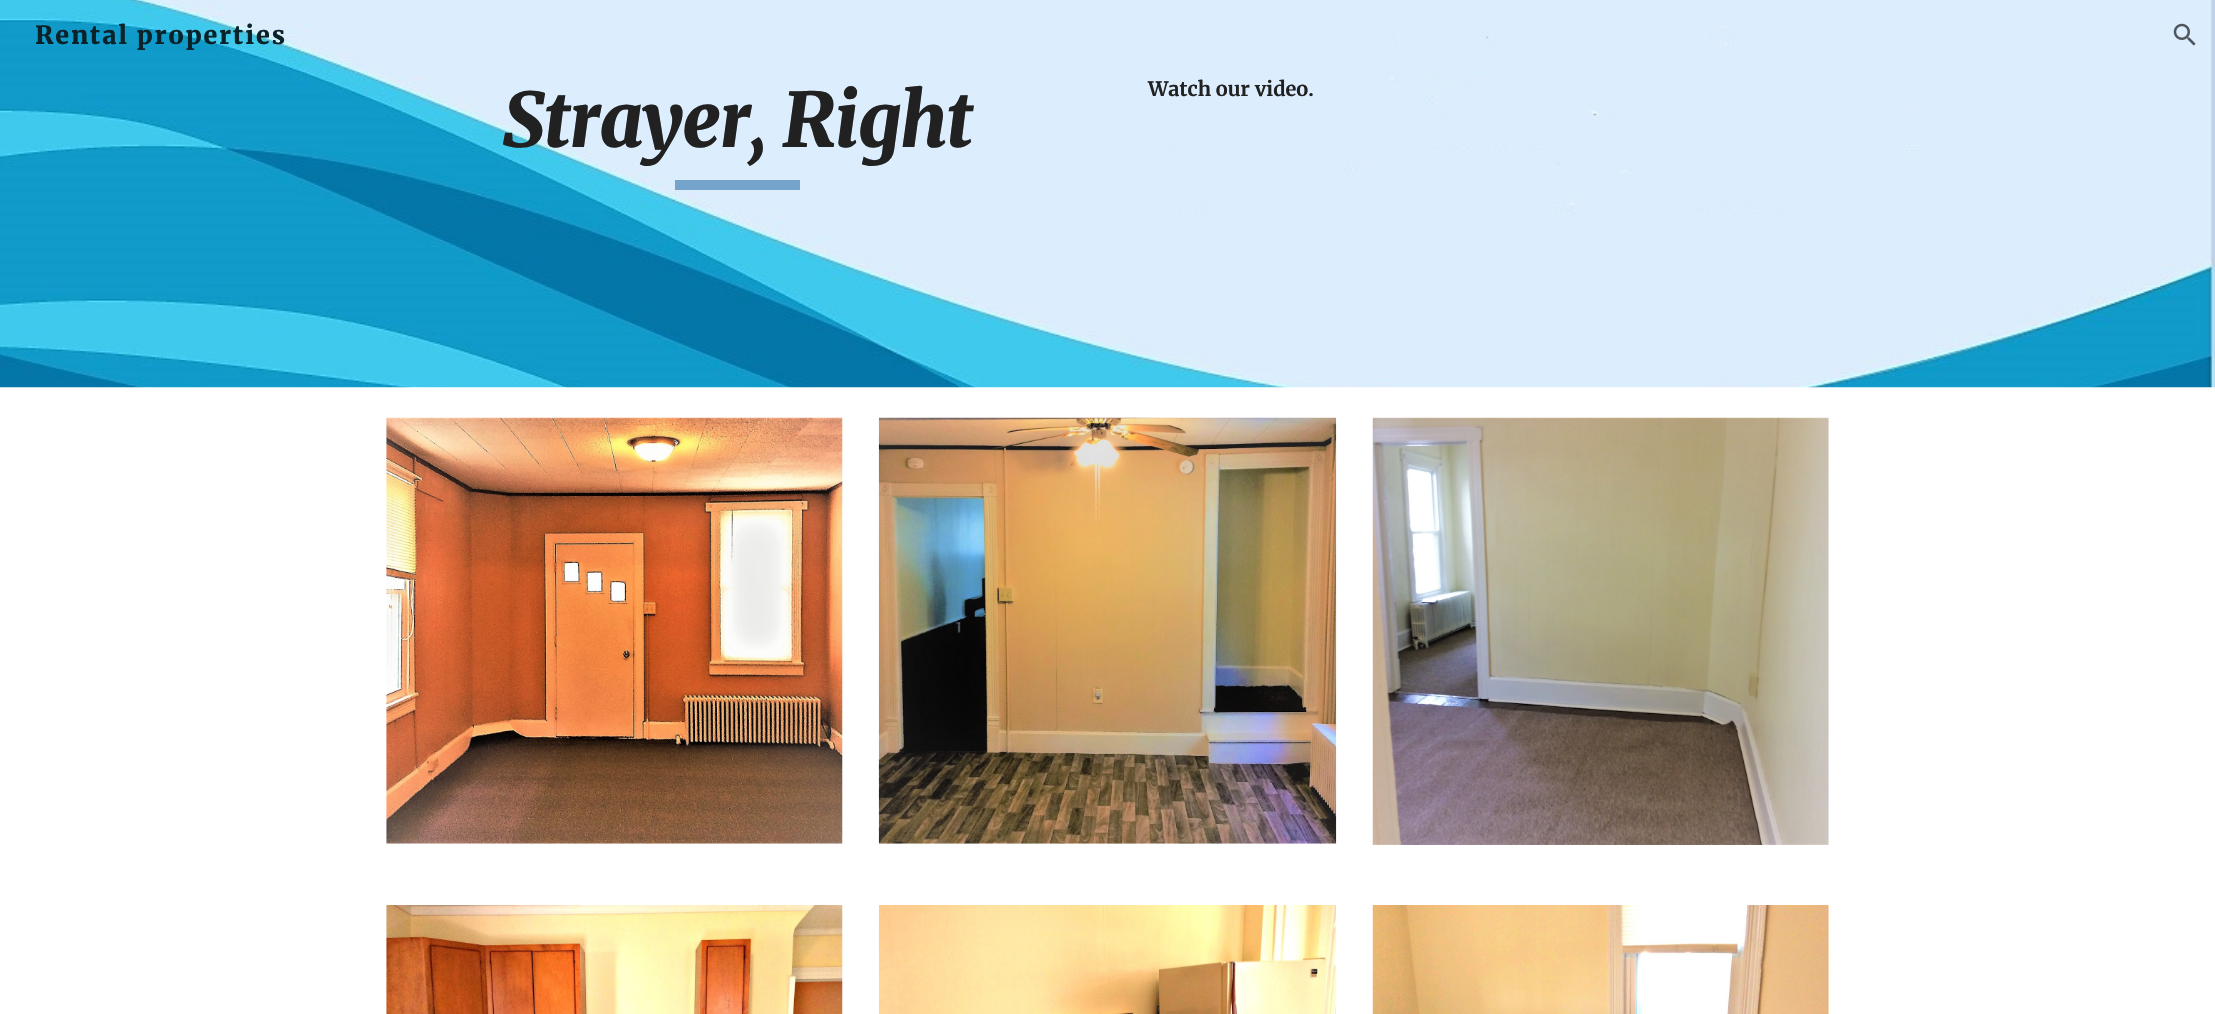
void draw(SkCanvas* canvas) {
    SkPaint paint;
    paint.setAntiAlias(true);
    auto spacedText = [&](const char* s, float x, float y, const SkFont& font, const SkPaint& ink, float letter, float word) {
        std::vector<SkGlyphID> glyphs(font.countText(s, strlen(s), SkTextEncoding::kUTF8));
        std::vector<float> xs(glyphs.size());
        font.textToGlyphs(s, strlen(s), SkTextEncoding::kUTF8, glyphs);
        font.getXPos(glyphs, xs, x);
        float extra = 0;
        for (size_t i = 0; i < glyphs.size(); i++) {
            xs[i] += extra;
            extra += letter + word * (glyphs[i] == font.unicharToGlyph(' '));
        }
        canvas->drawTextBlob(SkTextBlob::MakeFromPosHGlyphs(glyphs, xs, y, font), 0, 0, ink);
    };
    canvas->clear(0xFFFFFFFF);
    canvas->drawImageRect(SkImages::DeferredFromEncodedData(SkData::MakeFromFileName("img2.png")), SkRect::MakeXYWH(0, 0, 2215, 388), SkSamplingOptions());
    SkFont font1(fontMgr->matchFamilyStyle("Merriweather", SkFontStyle(900, SkFontStyle::kNormal_Width, SkFontStyle::kUpright_Slant)), 25);
    font1.setSubpixel(true);
    paint.setColor(0xFF0A232B);
    spacedText("Rental properties", 35, 44, font1, paint, 1.9f, 0);
    canvas->drawImageRect(SkImages::DeferredFromEncodedData(SkData::MakeFromFileName("img1.png")), SkRect::MakeXYWH(2173, 23, 23, 23), SkSamplingOptions());
    SkFont font2(fontMgr->matchFamilyStyle("Merriweather", SkFontStyle(900, SkFontStyle::kNormal_Width, SkFontStyle::kItalic_Slant)), 75);
    font2.setSubpixel(true);
    paint.setColor(0xFF212121);
    spacedText("Strayer, Right", 503, 147, font2, paint, -1.1f, 0);
    paint.setColor(0xFF74A4CB);
    canvas->drawRect(SkRect::MakeXYWH(675, 180, 125, 10), paint);
    SkFont font3(fontMgr->matchFamilyStyle("Merriweather", SkFontStyle::Bold()), 20);
    font3.setSubpixel(true);
    paint.setColor(0xFF212121);
    canvas->drawString("Watch our video.", 1148, 96, font3, paint);
    canvas->drawImageRect(SkImages::DeferredFromEncodedData(SkData::MakeFromFileName("img3.png")), SkRect::MakeXYWH(386, 417, 457, 427), SkSamplingOptions());
    canvas->drawImageRect(SkImages::DeferredFromEncodedData(SkData::MakeFromFileName("img4.png")), SkRect::MakeXYWH(878, 417, 459, 427), SkSamplingOptions());
    canvas->drawImageRect(SkImages::DeferredFromEncodedData(SkData::MakeFromFileName("img5.png")), SkRect::MakeXYWH(1372, 417, 457, 428), SkSamplingOptions());
    canvas->drawImageRect(SkImages::DeferredFromEncodedData(SkData::MakeFromFileName("img6.png")), SkRect::MakeXYWH(386, 905, 457, 109), SkSamplingOptions());
    canvas->drawImageRect(SkImages::DeferredFromEncodedData(SkData::MakeFromFileName("img7.png")), SkRect::MakeXYWH(878, 905, 459, 109), SkSamplingOptions());
    canvas->drawImageRect(SkImages::DeferredFromEncodedData(SkData::MakeFromFileName("img8.png")), SkRect::MakeXYWH(1372, 905, 457, 109), SkSamplingOptions());
}
